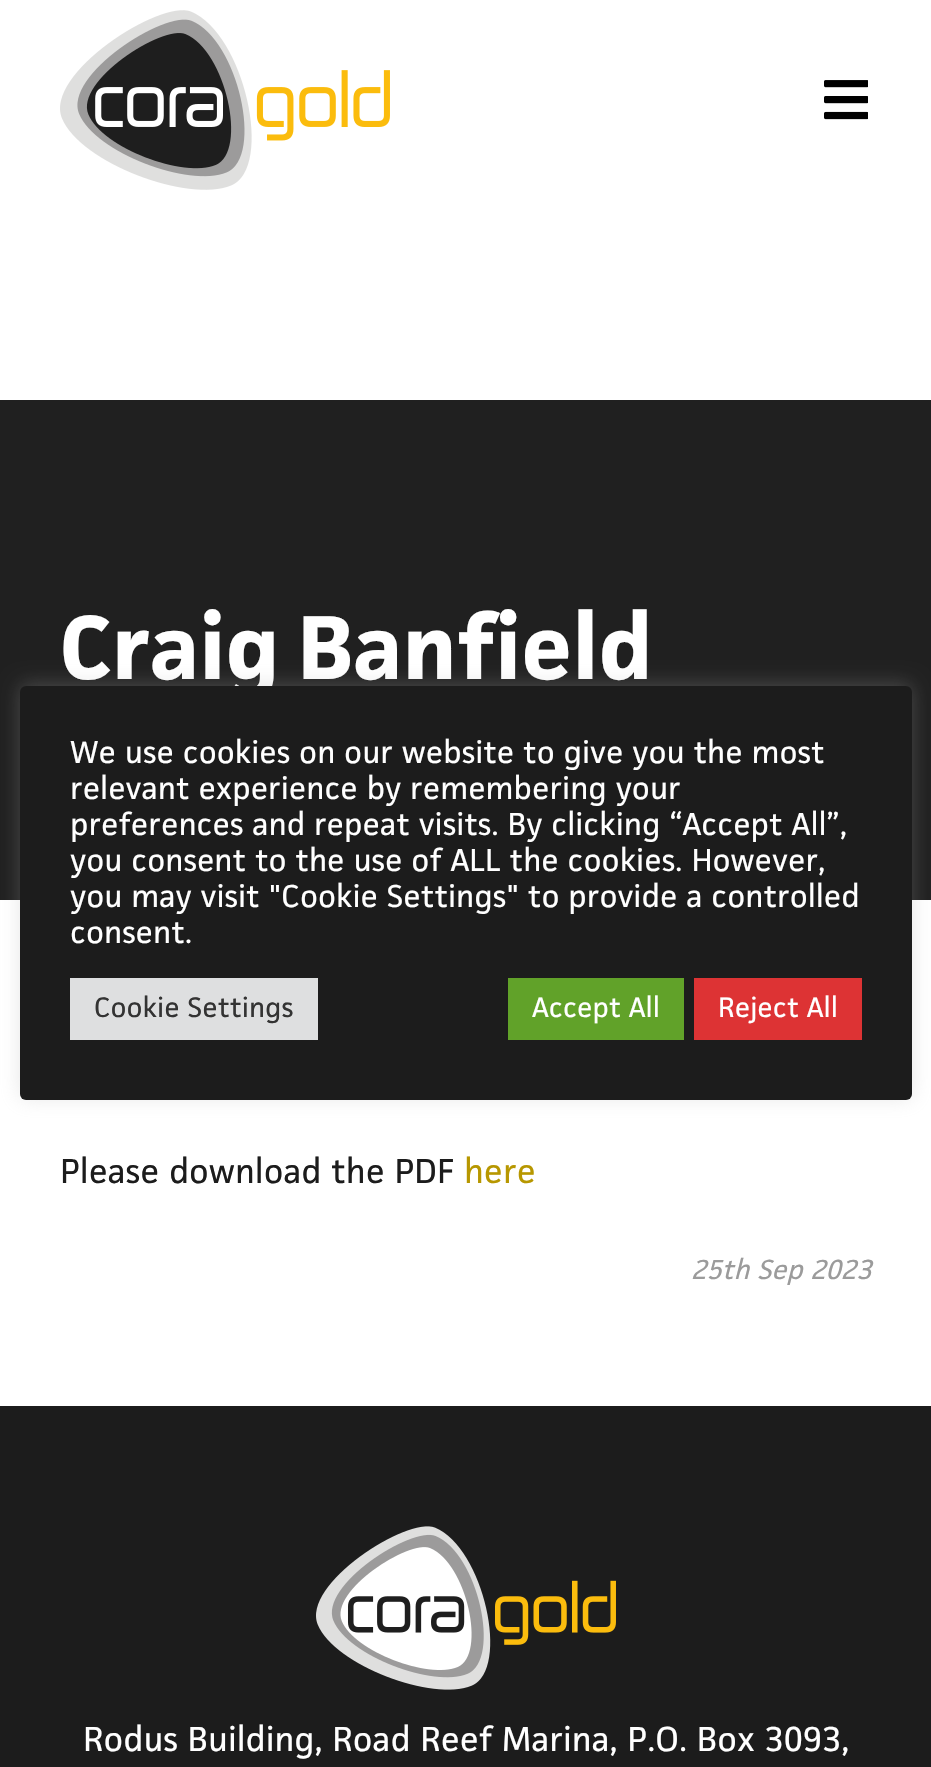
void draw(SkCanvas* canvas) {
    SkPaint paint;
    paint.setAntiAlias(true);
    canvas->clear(0xFFFFFFFF);
    canvas->drawImageRect(SkImages::DeferredFromEncodedData(SkData::MakeFromFileName("img1.png")), SkRect::MakeXYWH(60, 10, 330, 180), SkSamplingOptions());
    canvas->drawImageRect(SkImages::DeferredFromEncodedData(SkData::MakeFromFileName("img2.png")), SkRect::MakeXYWH(824, 80, 44, 40), SkSamplingOptions());
    paint.setColor(0xFF202020);
    canvas->drawRect(SkRect::MakeXYWH(0, 400, 931, 500), paint);
    SkFont font1(fontMgr->matchFamilyStyle("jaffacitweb", SkFontStyle::Bold()), 84);
    font1.setSubpixel(true);
    paint.setColor(0xFFFFFFFF);
    canvas->drawString("Craig Banfield", 60, 679, font1, paint);
    paint.setColor(0x4DACABAB);
    paint.setMaskFilter(SkMaskFilter::MakeBlur(kNormal_SkBlurStyle, 10));
    canvas->drawRoundRect(SkRect::MakeXYWH(20, 684, 892, 414), 6, 6, paint);
    paint.setMaskFilter(nullptr);
    paint.setColor(0xFF1C1C1C);
    canvas->drawRoundRect(SkRect::MakeXYWH(20, 686, 892, 414), 6, 6, paint);
    SkFont font2(fontMgr->matchFamilyStyle("jaffacitweb", SkFontStyle::Normal()), 29.3f);
    font2.setSubpixel(true);
    paint.setColor(0xFFFFFFFF);
    canvas->drawString("We use cookies on our website to give you the most", 70, 763, font2, paint);
    canvas->drawString("relevant experience by remembering your", 70, 799, font2, paint);
    canvas->drawString("preferences and repeat visits. By clicking “Accept All”,", 70, 835, font2, paint);
    canvas->drawString("you consent to the use of ALL the cookies. However,", 70, 871, font2, paint);
    canvas->drawString("you may visit \"Cookie Settings\" to provide a controlled", 70, 907, font2, paint);
    canvas->drawString("consent.", 70, 943, font2, paint);
    paint.setColor(0xFFDEDFE0);
    canvas->drawRect(SkRect::MakeXYWH(70, 978, 248, 62), paint);
    SkFont font3(fontMgr->matchFamilyStyle("jaffacitweb", SkFontStyle::Normal()), 26);
    font3.setSubpixel(true);
    paint.setColor(0xFF333333);
    canvas->drawString("Cookie Settings", 94, 1017, font3, paint);
    paint.setColor(0xFF61A229);
    canvas->drawRect(SkRect::MakeXYWH(508, 978, 176, 62), paint);
    paint.setColor(0xFFFFFFFF);
    canvas->drawString("Accept All", 532, 1017, font3, paint);
    paint.setColor(0xFFDD3334);
    canvas->drawRect(SkRect::MakeXYWH(694, 978, 168, 62), paint);
    paint.setColor(0xFFFFFFFF);
    canvas->drawString("Reject All", 718, 1017, font3, paint);
    SkFont font4(fontMgr->matchFamilyStyle("jaffacitweb", SkFontStyle::Normal()), 32);
    font4.setSubpixel(true);
    paint.setColor(0xFF1C1C1C);
    canvas->drawString("Please download the PDF", 60, 1183, font4, paint);
    paint.setColor(0xFFB79700);
    canvas->drawString("here", 464, 1183, font4, paint);
    SkFont font5(fontMgr->matchFamilyStyle("jaffacitweb", SkFontStyle::Italic()), 25.5f);
    font5.setSubpixel(true);
    paint.setColor(0xFF9B9B9B);
    canvas->drawString("25th Sep 2023", 691, 1279, font5, paint);
    paint.setColor(0xFF1C1C1C);
    canvas->drawRect(SkRect::MakeXYWH(0, 1406, 931, 361), paint);
    canvas->drawImageRect(SkImages::DeferredFromEncodedData(SkData::MakeFromFileName("img3.png")), SkRect::MakeXYWH(316, 1526, 300, 164), SkSamplingOptions());
    paint.setColor(0xFFFFFFFF);
    canvas->drawString("Rodus Building, Road Reef Marina, P.O. Box 3093,", 83, 1751, font4, paint);
}
